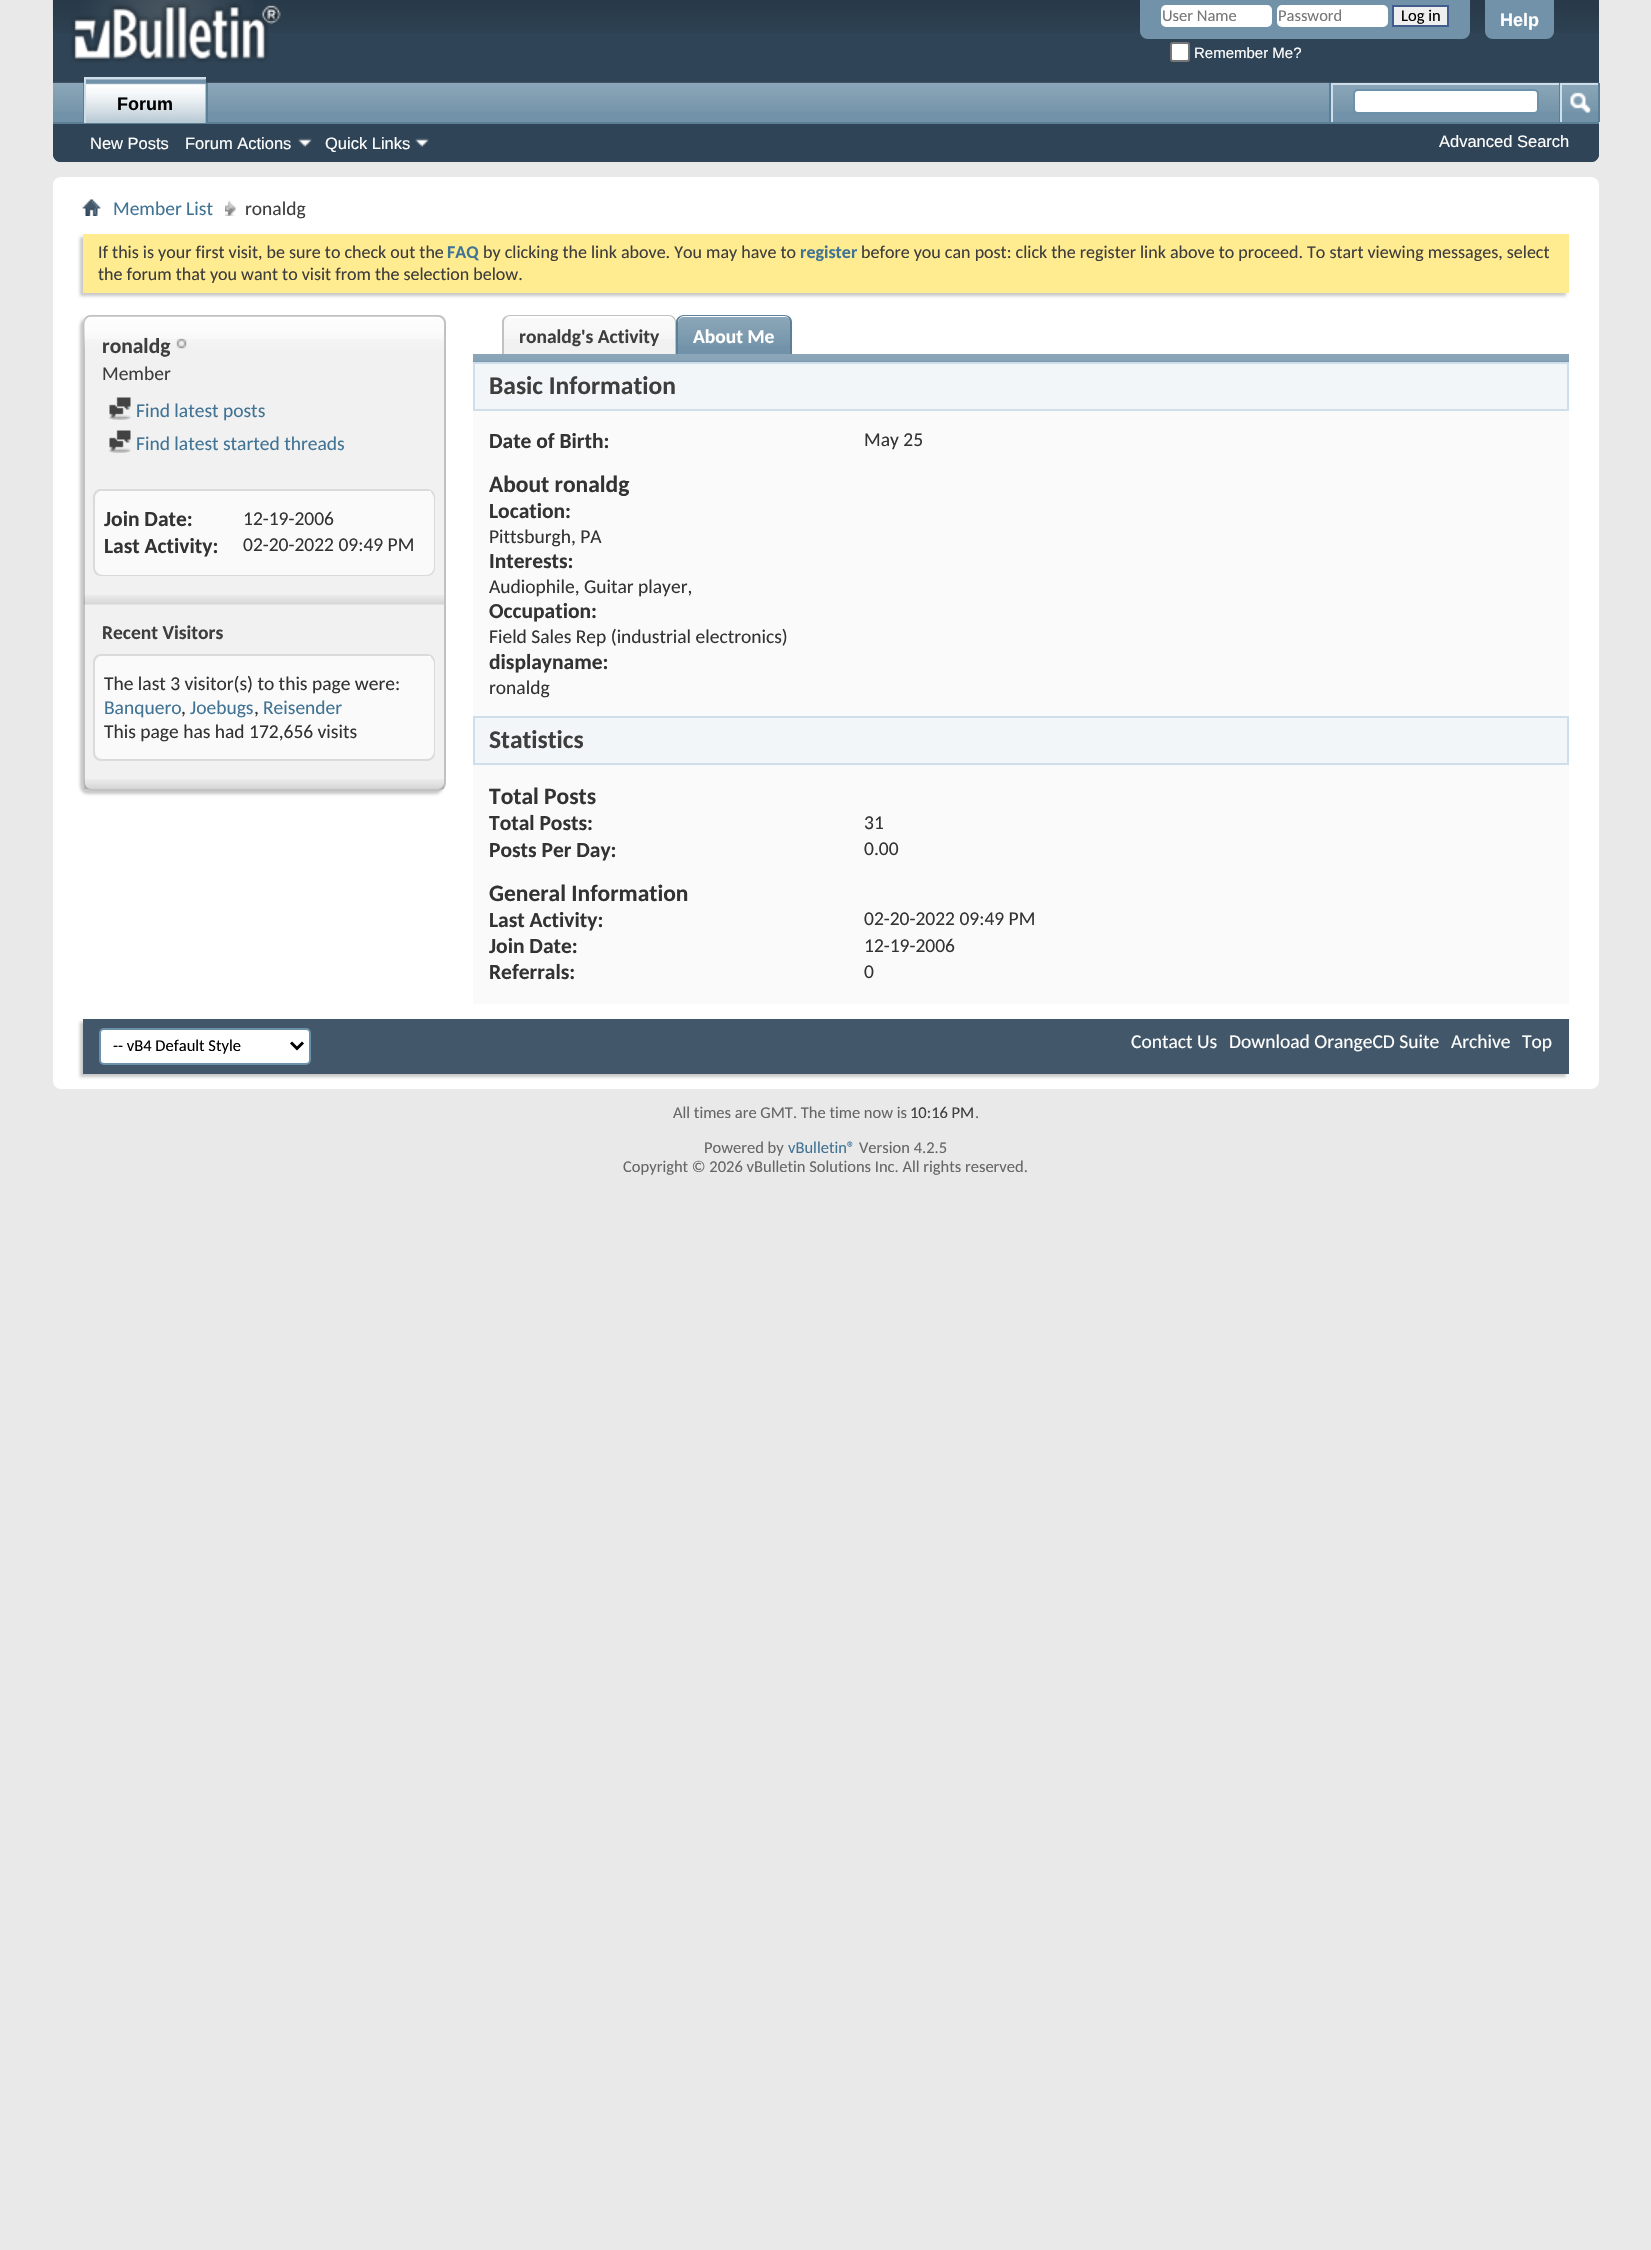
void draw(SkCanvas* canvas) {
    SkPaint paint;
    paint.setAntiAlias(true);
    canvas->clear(0xFFE9E9E9);
    paint.setColor(0xFF2F4456);
    canvas->drawPath(SkPathBuilder().moveTo(53, 0).lineTo(1599, 0).lineTo(1599, 154).cubicTo(1599, 158.5f, 1595.5f, 162, 1591, 162).lineTo(61, 162).cubicTo(56.5f, 162, 53, 158.5f, 53, 154).close().detach(), paint);
    canvas->drawImageRect(SkImages::DeferredFromEncodedData(SkData::MakeFromFileName("img1.png")), SkRect::MakeXYWH(52, 0, 1547, 33), SkSamplingOptions());
    canvas->drawImageRect(SkImages::DeferredFromEncodedData(SkData::MakeFromFileName("img2.png")), SkRect::MakeXYWH(70, 0, 211, 63), SkSamplingOptions());
    paint.setColor(0xFF7192A8);
    canvas->drawPath(SkPathBuilder().moveTo(1140, 0).lineTo(1470, 0).lineTo(1470, 31).cubicTo(1470, 35.5f, 1466.5f, 39, 1462, 39).lineTo(1148, 39).cubicTo(1143.5f, 39, 1140, 35.5f, 1140, 31).close().detach(), paint);
    paint.setColor(0xFFFFFFFF);
    canvas->drawRoundRect(SkRect::MakeXYWH(1161, 5, 111, 22), 5, 5, paint);
    SkFont font1(fontMgr->matchFamilyStyle("Carlito", SkFontStyle::Normal()), 16.5f);
    font1.setSubpixel(true);
    paint.setColor(0xFF777777);
    canvas->drawString("User Name", 1162, 21, font1, paint);
    paint.setColor(0xFFFFFFFF);
    canvas->drawRoundRect(SkRect::MakeXYWH(1277, 5, 111, 22), 5, 5, paint);
    paint.setColor(0xFF777777);
    canvas->drawString("Password", 1278, 21, font1, paint);
    paint.setColor(0xFFEFEFEF);
    canvas->drawRect(SkRect::MakeXYWH(1393, 6, 55, 20), paint);
    paint.setStyle(SkPaint::kStroke_Style);
    paint.setStrokeWidth(2);
    paint.setColor(0xFF415D8D);
    canvas->drawRect(SkRect::MakeXYWH(1393, 6, 55, 20), paint);
    paint.setStyle(SkPaint::kFill_Style);
    paint.setColor(0xFF000000);
    canvas->drawString("Log in", 1401, 21, font1, paint);
    paint.setColor(0xFFFFFFFF);
    canvas->drawRoundRect(SkRect::MakeXYWH(1171, 43, 18, 18), 2, 2, paint);
    paint.setStyle(SkPaint::kStroke_Style);
    paint.setColor(0xFF767676);
    canvas->drawRoundRect(SkRect::MakeXYWH(1171, 43, 18, 18), 2, 2, paint);
    SkFont font2(fontMgr->matchFamilyStyle("Liberation Sans", SkFontStyle::Normal()), 15);
    font2.setSubpixel(true);
    paint.setStyle(SkPaint::kFill_Style);
    paint.setColor(0xFFFFFFFF);
    canvas->drawString("Remember Me?", 1194, 58, font2, paint);
    paint.setColor(0xFF7192A8);
    canvas->drawPath(SkPathBuilder().moveTo(1485, 0).lineTo(1554, 0).lineTo(1554, 31).cubicTo(1554, 35.5f, 1550.5f, 39, 1546, 39).lineTo(1493, 39).cubicTo(1488.5f, 39, 1485, 35.5f, 1485, 31).close().detach(), paint);
    SkFont font3(fontMgr->matchFamilyStyle("Liberation Sans", SkFontStyle::Bold()), 18);
    font3.setSubpixel(true);
    paint.setColor(0xFFFFFFFF);
    canvas->drawString("Help", 1500, 26, font3, paint);
    paint.setColor(0xFF2F4456);
    canvas->drawPath(SkPathBuilder().moveTo(53, 83).lineTo(1599, 83).lineTo(1599, 154).cubicTo(1599, 158.5f, 1595.5f, 162, 1591, 162).lineTo(61, 162).cubicTo(56.5f, 162, 53, 158.5f, 53, 154).close().detach(), paint);
    paint.setColor(0xFF7192A8);
    canvas->drawRect(SkRect::MakeXYWH(53, 83, 1545, 39), paint);
    canvas->drawImageRect(SkImages::DeferredFromEncodedData(SkData::MakeFromFileName("img3.png")), SkRect::MakeXYWH(53, 82, 1546, 30), SkSamplingOptions());
    paint.setColor(0xFF5A7F97);
    canvas->drawRect(SkRect::MakeXYWH(206, 83, 2, 39), paint);
    canvas->drawRect(SkRect::MakeXYWH(83, 83, 1, 39), paint);
    canvas->drawRect(SkRect::MakeXYWH(53, 122, 1546, 2), paint);
    paint.setColor(0xFF7192A8);
    canvas->drawRect(SkRect::MakeXYWH(86, 79, 120, 44), paint);
    canvas->drawImageRect(SkImages::DeferredFromEncodedData(SkData::MakeFromFileName("img4.png")), SkRect::MakeXYWH(86, 79, 120, 44), SkSamplingOptions());
    paint.setColor(0xFFCEDFEB);
    canvas->drawRect(SkRect::MakeXYWH(84, 77, 122, 2), paint);
    canvas->drawRect(SkRect::MakeXYWH(84, 77, 2, 46), paint);
    paint.setColor(0xFF000000);
    canvas->drawString("Forum", 117, 110, font3, paint);
    SkFont font4(fontMgr->matchFamilyStyle("Liberation Sans", SkFontStyle::Normal()), 16.5f);
    font4.setSubpixel(true);
    paint.setColor(0xFFFFFFFF);
    canvas->drawString("New Posts", 90, 149, font4, paint);
    canvas->drawString("Forum Actions", 185, 149, font4, paint);
    canvas->drawImageRect(SkImages::DeferredFromEncodedData(SkData::MakeFromFileName("img5.png")), SkRect::MakeXYWH(298, 138, 14, 9), SkSamplingOptions());
    canvas->drawString("Quick Links", 325, 149, font4, paint);
    canvas->drawImageRect(SkImages::DeferredFromEncodedData(SkData::MakeFromFileName("img5.png")), SkRect::MakeXYWH(415, 138, 14, 9), SkSamplingOptions());
    paint.setColor(0xFF5A7F97);
    canvas->drawRect(SkRect::MakeXYWH(1329, 83, 2, 39), paint);
    paint.setColor(0xFFCEDFEB);
    canvas->drawRect(SkRect::MakeXYWH(1331, 83, 228, 2), paint);
    canvas->drawRect(SkRect::MakeXYWH(1331, 83, 2, 39), paint);
    paint.setColor(0xFFFFFFFF);
    canvas->drawRoundRect(SkRect::MakeXYWH(1354, 90, 184, 23), 4, 4, paint);
    paint.setStyle(SkPaint::kStroke_Style);
    paint.setColor(0xFF6B91AB);
    canvas->drawRoundRect(SkRect::MakeXYWH(1354, 90, 184, 23), 4, 4, paint);
    paint.setStyle(SkPaint::kFill_Style);
    paint.setColor(0xFF5A7F97);
    canvas->drawRect(SkRect::MakeXYWH(1598, 83, 2, 39), paint);
    canvas->drawRect(SkRect::MakeXYWH(1559, 83, 1, 39), paint);
    paint.setColor(0xFFCEDFEB);
    canvas->drawRect(SkRect::MakeXYWH(1560, 83, 38, 2), paint);
    canvas->drawRect(SkRect::MakeXYWH(1560, 83, 2, 39), paint);
    canvas->drawImageRect(SkImages::DeferredFromEncodedData(SkData::MakeFromFileName("img6.png")), SkRect::MakeXYWH(1570, 92, 21, 22), SkSamplingOptions());
    paint.setColor(0xFFFFFFFF);
    canvas->drawString("Advanced Search", 1439, 147, font4, paint);
    canvas->drawRoundRect(SkRect::MakeXYWH(53, 177, 1546, 912), 8, 8, paint);
    canvas->drawImageRect(SkImages::DeferredFromEncodedData(SkData::MakeFromFileName("img7.png")), SkRect::MakeXYWH(82, 199, 19, 17), SkSamplingOptions());
    canvas->drawImageRect(SkImages::DeferredFromEncodedData(SkData::MakeFromFileName("img8.png")), SkRect::MakeXYWH(225, 200, 11, 16), SkSamplingOptions());
    SkFont font5(fontMgr->matchFamilyStyle("Carlito", SkFontStyle::Normal()), 19.5f);
    font5.setSubpixel(true);
    paint.setColor(0xFF417394);
    canvas->drawString("Member List", 113, 215, font5, paint);
    paint.setColor(0xFF3E3E3E);
    canvas->drawString("ronaldg", 245, 215, font5, paint);
    paint.setColor(0xFFC8C8C8);
    paint.setMaskFilter(SkMaskFilter::MakeBlur(kNormal_SkBlurStyle, 1.5f));
    canvas->drawRect(SkRect::MakeXYWH(80, 237, 1486, 59), paint);
    paint.setMaskFilter(nullptr);
    paint.setColor(0xFFFFEB90);
    canvas->drawRect(SkRect::MakeXYWH(83, 234, 1486, 59), paint);
    SkFont font6(fontMgr->matchFamilyStyle("Carlito", SkFontStyle::Normal()), 18);
    font6.setSubpixel(true);
    paint.setColor(0xFF3E3E3E);
    canvas->drawString("If this is your first visit, be sure to check out the", 98, 258, font6, paint);
    SkFont font7(fontMgr->matchFamilyStyle("Carlito", SkFontStyle::Bold()), 18);
    font7.setSubpixel(true);
    paint.setColor(0xFF417394);
    canvas->drawString("FAQ", 447, 258, font7, paint);
    paint.setColor(0xFF3E3E3E);
    canvas->drawString("by clicking the link above. You may have to", 483, 258, font6, paint);
    paint.setColor(0xFF417394);
    canvas->drawString("register", 800, 258, font7, paint);
    paint.setColor(0xFF3E3E3E);
    canvas->drawString("before you can post: click the register link above to proceed. To start viewing messages, select", 861, 258, font6, paint);
    canvas->drawString("the forum that you want to visit from the selection below.", 98, 280, font6, paint);
    paint.setColor(0xFFC8C8C8);
    paint.setMaskFilter(SkMaskFilter::MakeBlur(kNormal_SkBlurStyle, 1.5f));
    canvas->drawRoundRect(SkRect::MakeXYWH(80, 318, 363, 476), 8, 8, paint);
    paint.setMaskFilter(nullptr);
    paint.setColor(0xFFF1F1F1);
    canvas->drawRoundRect(SkRect::MakeXYWH(83, 315, 363, 476), 8, 8, paint);
    canvas->drawImageRect(SkImages::DeferredFromEncodedData(SkData::MakeFromFileName("img9.png")), SkRect::MakeXYWH(83, 316, 362, 23), SkSamplingOptions());
    paint.setStyle(SkPaint::kStroke_Style);
    paint.setColor(0xFFC1C1C1);
    canvas->drawRoundRect(SkRect::MakeXYWH(84, 316, 361, 474), 7, 7, paint);
    canvas->drawImageRect(SkImages::DeferredFromEncodedData(SkData::MakeFromFileName("img10.png")), SkRect::MakeXYWH(84, 316, 360, 32), SkSamplingOptions());
    SkFont font8(fontMgr->matchFamilyStyle("Carlito", SkFontStyle::Bold()), 21.5f);
    font8.setSubpixel(true);
    paint.setStyle(SkPaint::kFill_Style);
    paint.setColor(0xFF3E3E3E);
    canvas->drawString("ronaldg", 102, 353, font8, paint);
    canvas->drawImageRect(SkImages::DeferredFromEncodedData(SkData::MakeFromFileName("img11.png")), SkRect::MakeXYWH(176, 338, 11, 11), SkSamplingOptions());
    canvas->drawString("Member", 102, 380, font5, paint);
    canvas->drawImageRect(SkImages::DeferredFromEncodedData(SkData::MakeFromFileName("img12.png")), SkRect::MakeXYWH(109, 397, 22, 23), SkSamplingOptions());
    paint.setColor(0xFF417394);
    canvas->drawString("Find latest posts", 136, 417, font5, paint);
    canvas->drawImageRect(SkImages::DeferredFromEncodedData(SkData::MakeFromFileName("img12.png")), SkRect::MakeXYWH(109, 430, 22, 23), SkSamplingOptions());
    canvas->drawString("Find latest started threads", 136, 450, font5, paint);
    paint.setStyle(SkPaint::kStroke_Style);
    paint.setColor(0xFFDADADA);
    canvas->drawRoundRect(SkRect::MakeXYWH(94, 490, 340, 85), 7, 7, paint);
    paint.setStyle(SkPaint::kFill_Style);
    paint.setColor(0xFFFAFAFA);
    canvas->drawRoundRect(SkRect::MakeXYWH(95, 491, 339, 84), 8, 8, paint);
    canvas->drawRect(SkRect::MakeXYWH(99, 491, 332, 2), paint);
    paint.setColor(0xFF333333);
    canvas->drawString("Join Date:", 104, 526, font8, paint);
    canvas->drawString("12-19-2006", 243, 525, font5, paint);
    canvas->drawString("Last Activity:", 104, 553, font8, paint);
    canvas->drawString("02-20-2022 09:49 PM", 243, 551, font5, paint);
    canvas->drawImageRect(SkImages::DeferredFromEncodedData(SkData::MakeFromFileName("img13.png")), SkRect::MakeXYWH(84, 595, 360, 10), SkSamplingOptions());
    SkFont font9(fontMgr->matchFamilyStyle("Carlito", SkFontStyle::Bold()), 19.5f);
    font9.setSubpixel(true);
    paint.setColor(0xFF3E3E3E);
    canvas->drawString("Recent Visitors", 102, 639, font9, paint);
    paint.setStyle(SkPaint::kStroke_Style);
    paint.setColor(0xFFDADADA);
    canvas->drawRoundRect(SkRect::MakeXYWH(94, 655, 340, 105), 7, 7, paint);
    paint.setStyle(SkPaint::kFill_Style);
    paint.setColor(0xFFFAFAFA);
    canvas->drawRoundRect(SkRect::MakeXYWH(95, 656, 339, 103), 8, 8, paint);
    canvas->drawRect(SkRect::MakeXYWH(99, 656, 332, 2), paint);
    paint.setColor(0xFF333333);
    canvas->drawString("The last 3 visitor(s) to this page were:", 104, 690, font5, paint);
    paint.setColor(0xFF417394);
    canvas->drawString("Banquero", 104, 714, font5, paint);
    paint.setColor(0xFF333333);
    canvas->drawString(",", 181, 714, font5, paint);
    paint.setColor(0xFF417394);
    canvas->drawString("Joebugs", 190, 714, font5, paint);
    paint.setColor(0xFF333333);
    canvas->drawString(",", 254, 714, font5, paint);
    paint.setColor(0xFF417394);
    canvas->drawString("Reisender", 263, 714, font5, paint);
    paint.setColor(0xFF333333);
    canvas->drawString("This page has had 172,656 visits", 104, 738, font5, paint);
    canvas->drawImageRect(SkImages::DeferredFromEncodedData(SkData::MakeFromFileName("img14.png")), SkRect::MakeXYWH(84, 779, 360, 10), SkSamplingOptions());
    paint.setColor(0xFFF1F1F1);
    canvas->drawPath(SkPathBuilder().moveTo(510, 317).lineTo(669, 317).cubicTo(672.5f, 317, 675, 319.5f, 675, 323).lineTo(675, 354).lineTo(504, 354).lineTo(504, 323).cubicTo(504, 319.5f, 506.5f, 317, 510, 317).close().detach(), paint);
    canvas->drawImageRect(SkImages::DeferredFromEncodedData(SkData::MakeFromFileName("img15.png")), SkRect::MakeXYWH(504, 317, 171, 22), SkSamplingOptions());
    paint.setColor(0xFFC1C1C1);
    canvas->drawPath(SkPathBuilder(SkPathFillType::kEvenOdd).moveTo(510, 315).lineTo(669, 315).cubicTo(673, 315, 676, 318, 676, 322).lineTo(676, 354).lineTo(502, 354).lineTo(502, 322).cubicTo(502, 318, 506, 315, 510, 315).close().moveTo(510, 316).lineTo(669, 316).cubicTo(672, 316, 675, 319, 675, 322).lineTo(675, 354).lineTo(504, 354).lineTo(504, 322).cubicTo(504, 319, 507, 316, 510, 316).close().detach(), paint);
    paint.setColor(0xFF3E3E3E);
    canvas->drawString("ronaldg's Activity", 519, 343, font9, paint);
    paint.setColor(0xFF7192A8);
    canvas->drawPath(SkPathBuilder().moveTo(684, 317).lineTo(785, 317).cubicTo(788.5f, 317, 791, 319.5f, 791, 323).lineTo(791, 354).lineTo(678, 354).lineTo(678, 323).cubicTo(678, 319.5f, 680.5f, 317, 684, 317).close().detach(), paint);
    canvas->drawImageRect(SkImages::DeferredFromEncodedData(SkData::MakeFromFileName("img16.png")), SkRect::MakeXYWH(678, 317, 113, 29), SkSamplingOptions());
    paint.setColor(0xFF5A7F97);
    canvas->drawPath(SkPathBuilder(SkPathFillType::kEvenOdd).moveTo(684, 315).lineTo(784, 315).cubicTo(789, 315, 792, 318, 792, 322).lineTo(792, 354).lineTo(676, 354).lineTo(676, 322).cubicTo(676, 318, 680, 315, 684, 315).close().moveTo(684, 316).lineTo(784, 316).cubicTo(788, 316, 790, 319, 790, 322).lineTo(790, 354).lineTo(678, 354).lineTo(678, 322).cubicTo(678, 319, 681, 316, 684, 316).close().detach(), paint);
    paint.setColor(0xFFFFFFFF);
    canvas->drawString("About Me", 693, 343, font9, paint);
    paint.setColor(0xFF7192A8);
    canvas->drawRect(SkRect::MakeXYWH(473, 354, 1096, 8), paint);
    canvas->drawImageRect(SkImages::DeferredFromEncodedData(SkData::MakeFromFileName("img17.png")), SkRect::MakeXYWH(473, 354, 1096, 8), SkSamplingOptions());
    paint.setColor(0xFFF2F6F8);
    canvas->drawRect(SkRect::MakeXYWH(474, 363, 1094, 47), paint);
    paint.setStyle(SkPaint::kStroke_Style);
    paint.setColor(0xFFCEDFEB);
    canvas->drawRect(SkRect::MakeXYWH(474, 363, 1094, 47), paint);
    SkFont font10(fontMgr->matchFamilyStyle("Carlito", SkFontStyle::Bold()), 25.5f);
    font10.setSubpixel(true);
    paint.setStyle(SkPaint::kFill_Style);
    paint.setColor(0xFF3E3E3E);
    canvas->drawString("Basic Information", 489, 394, font10, paint);
    paint.setColor(0xFFFAFAFA);
    canvas->drawRect(SkRect::MakeXYWH(473, 411, 1096, 305), paint);
    paint.setColor(0xFF333333);
    canvas->drawString("Date of Birth:", 489, 448, font8, paint);
    canvas->drawString("May 25", 864, 446, font5, paint);
    SkFont font11(fontMgr->matchFamilyStyle("Carlito", SkFontStyle::Bold()), 23.5f);
    font11.setSubpixel(true);
    canvas->drawString("About ronaldg", 489, 492, font11, paint);
    canvas->drawString("Location:", 489, 518, font8, paint);
    canvas->drawString("Pittsburgh, PA", 489, 543, font5, paint);
    canvas->drawString("Interests:", 489, 568, font8, paint);
    canvas->drawString("Audiophile, Guitar player,", 489, 593, font5, paint);
    canvas->drawString("Occupation:", 489, 618, font8, paint);
    canvas->drawString("Field Sales Rep (industrial electronics)", 489, 643, font5, paint);
    canvas->drawString("displayname:", 489, 669, font8, paint);
    canvas->drawString("ronaldg", 489, 694, font5, paint);
    paint.setColor(0xFFF2F6F8);
    canvas->drawRect(SkRect::MakeXYWH(474, 717, 1094, 47), paint);
    paint.setStyle(SkPaint::kStroke_Style);
    paint.setColor(0xFFCEDFEB);
    canvas->drawRect(SkRect::MakeXYWH(474, 717, 1094, 47), paint);
    paint.setStyle(SkPaint::kFill_Style);
    paint.setColor(0xFF3E3E3E);
    canvas->drawString("Statistics", 489, 748, font10, paint);
    paint.setColor(0xFFFAFAFA);
    canvas->drawRect(SkRect::MakeXYWH(473, 765, 1096, 239), paint);
    paint.setColor(0xFF333333);
    canvas->drawString("Total Posts", 489, 804, font11, paint);
    canvas->drawString("Total Posts:", 489, 830, font8, paint);
    canvas->drawString("31", 864, 829, font5, paint);
    canvas->drawString("Posts Per Day:", 489, 857, font8, paint);
    canvas->drawString("0.00", 864, 855, font5, paint);
    canvas->drawString("General Information", 489, 901, font11, paint);
    canvas->drawString("Last Activity:", 489, 927, font8, paint);
    canvas->drawString("02-20-2022 09:49 PM", 864, 925, font5, paint);
    canvas->drawString("Join Date:", 489, 953, font8, paint);
    canvas->drawString("12-19-2006", 864, 952, font5, paint);
    canvas->drawString("Referrals:", 489, 979, font8, paint);
    canvas->drawString("0", 864, 978, font5, paint);
    paint.setColor(0xFFC8C8C8);
    paint.setMaskFilter(SkMaskFilter::MakeBlur(kNormal_SkBlurStyle, 1.5f));
    canvas->drawRect(SkRect::MakeXYWH(80, 1022, 1486, 55), paint);
    paint.setMaskFilter(nullptr);
    paint.setColor(0xFF425769);
    canvas->drawRect(SkRect::MakeXYWH(83, 1019, 1486, 55), paint);
    paint.setColor(0xFFFFFFFF);
    canvas->drawRoundRect(SkRect::MakeXYWH(100, 1029, 210, 35), 4, 4, paint);
    paint.setStyle(SkPaint::kStroke_Style);
    paint.setColor(0xFF6B91AB);
    canvas->drawRoundRect(SkRect::MakeXYWH(100, 1029, 210, 35), 4, 4, paint);
    paint.setStrokeWidth(3);
    paint.setColor(0xFF000000);
    canvas->drawPath(SkPathBuilder().moveTo(291, 1042.5f).lineTo(297, 1048.5f).lineTo(303, 1042.5f).detach(), paint);
    paint.setStyle(SkPaint::kFill_Style);
    canvas->drawString("-- vB4 Default Style", 113, 1051, font1, paint);
    paint.setColor(0xFFFFFFFF);
    canvas->drawString("Contact Us", 1131, 1048, font5, paint);
    canvas->drawString("Download OrangeCD Suite", 1229, 1048, font5, paint);
    canvas->drawString("Archive", 1451, 1048, font5, paint);
    canvas->drawString("Top", 1522, 1048, font5, paint);
    paint.setColor(0xFF666666);
    canvas->drawString("All times are GMT. The time now is", 673, 1118, font1, paint);
    paint.setColor(0xFF3E3E3E);
    canvas->drawString("10:16 PM", 910, 1118, font1, paint);
    paint.setColor(0xFF666666);
    canvas->drawString(".", 975, 1118, font1, paint);
    canvas->drawString("Powered by", 704, 1153, font1, paint);
    paint.setColor(0xFF417394);
    canvas->drawString("vBulletin®", 788, 1153, font1, paint);
    paint.setColor(0xFF666666);
    canvas->drawString("Version 4.2.5", 859, 1153, font1, paint);
    canvas->drawString("Copyright © 2026 vBulletin Solutions Inc. All rights reserved.", 623, 1172, font1, paint);
}
